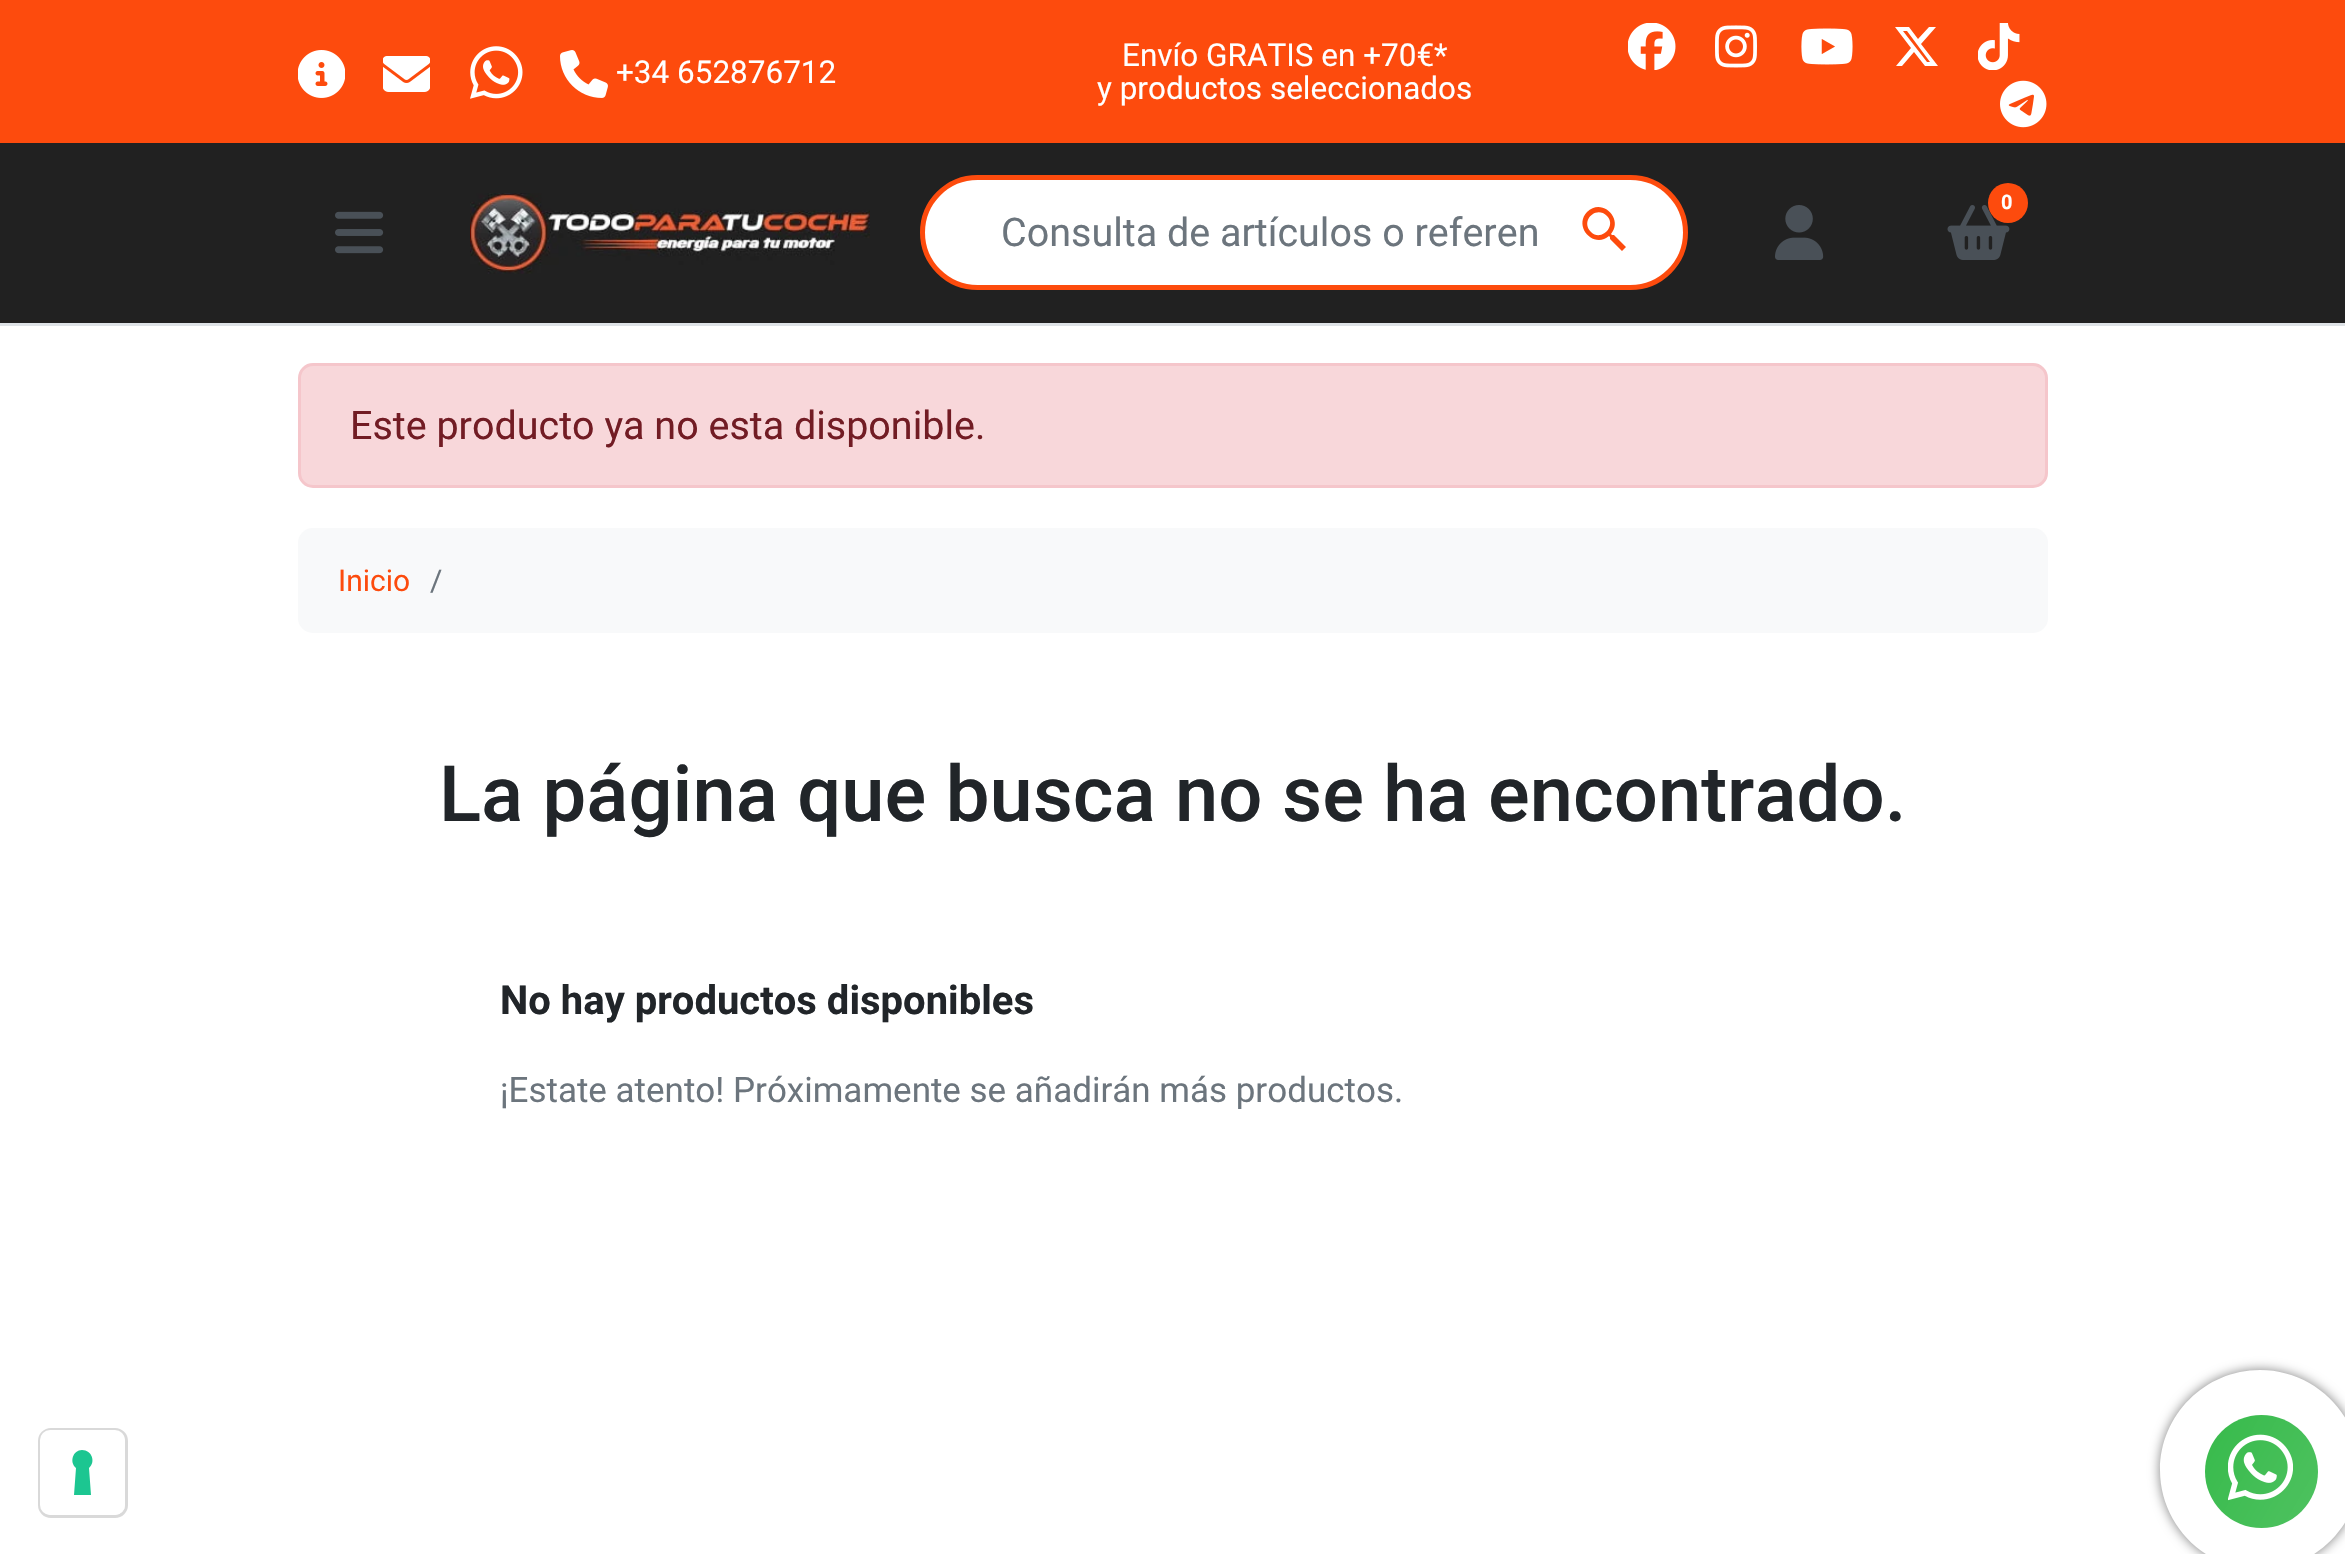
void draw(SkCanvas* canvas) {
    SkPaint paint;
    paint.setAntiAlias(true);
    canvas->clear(0xFFFFFFFF);
    paint.setColor(0xFFFD4B0D);
    canvas->drawRect(SkRect::MakeXYWH(0, 0, 2345, 143), paint);
    canvas->drawImageRect(SkImages::DeferredFromEncodedData(SkData::MakeFromFileName("img1.png")), SkRect::MakeXYWH(298, 50, 47, 48), SkSamplingOptions());
    canvas->drawImageRect(SkImages::DeferredFromEncodedData(SkData::MakeFromFileName("img2.png")), SkRect::MakeXYWH(383, 56, 47, 36), SkSamplingOptions());
    canvas->drawImageRect(SkImages::DeferredFromEncodedData(SkData::MakeFromFileName("img3.png")), SkRect::MakeXYWH(470, 46, 53, 53), SkSamplingOptions());
    canvas->drawImageRect(SkImages::DeferredFromEncodedData(SkData::MakeFromFileName("img4.png")), SkRect::MakeXYWH(560, 50, 48, 48), SkSamplingOptions());
    SkFont font1(fontMgr->matchFamilyStyle("Roboto", SkFontStyle::Normal()), 31.5f);
    font1.setSubpixel(true);
    paint.setColor(0xFFFFFFFF);
    canvas->drawString("+34 652876712", 616, 83, font1, paint);
    canvas->drawString("Envío GRATIS en +70€*", 1122, 66, font1, paint);
    canvas->drawString("y productos seleccionados", 1097, 99, font1, paint);
    canvas->drawImageRect(SkImages::DeferredFromEncodedData(SkData::MakeFromFileName("img5.png")), SkRect::MakeXYWH(1628, 23, 48, 47), SkSamplingOptions());
    canvas->drawImageRect(SkImages::DeferredFromEncodedData(SkData::MakeFromFileName("img6.png")), SkRect::MakeXYWH(1715, 25, 42, 43), SkSamplingOptions());
    canvas->drawImageRect(SkImages::DeferredFromEncodedData(SkData::MakeFromFileName("img7.png")), SkRect::MakeXYWH(1801, 28, 52, 37), SkSamplingOptions());
    canvas->drawPath(SkPathBuilder().moveTo(1929, 27).lineTo(1936, 27).lineTo(1921, 44).lineTo(1938, 66).lineTo(1925, 66).lineTo(1914, 52).lineTo(1902, 66).lineTo(1896, 66).lineTo(1911, 48).lineTo(1895, 27).lineTo(1909, 27).lineTo(1918, 39).close().moveTo(1927, 62).lineTo(1930, 62).lineTo(1907, 31).lineTo(1903, 31).close().detach(), paint);
    canvas->drawImageRect(SkImages::DeferredFromEncodedData(SkData::MakeFromFileName("img8.png")), SkRect::MakeXYWH(1978, 23, 42, 47), SkSamplingOptions());
    canvas->drawImageRect(SkImages::DeferredFromEncodedData(SkData::MakeFromFileName("img9.png")), SkRect::MakeXYWH(2000, 80, 47, 48), SkSamplingOptions());
    paint.setColor(0xFFDEE2E6);
    canvas->drawRect(SkRect::MakeXYWH(0, 323, 2345, 3), paint);
    paint.setColor(0xFF212121);
    canvas->drawRect(SkRect::MakeXYWH(0, 143, 2345, 180), paint);
    canvas->drawImageRect(SkImages::DeferredFromEncodedData(SkData::MakeFromFileName("img10.png")), SkRect::MakeXYWH(470, 193, 400, 81), SkSamplingOptions());
    canvas->drawImageRect(SkImages::DeferredFromEncodedData(SkData::MakeFromFileName("img11.png")), SkRect::MakeXYWH(1947, 205, 63, 55), SkSamplingOptions());
    paint.setColor(0xFFFD4B0D);
    canvas->drawCircle(2008, 203, 20, paint);
    SkFont font2(fontMgr->matchFamilyStyle("Roboto", SkFontStyle::Bold()), 20);
    font2.setSubpixel(true);
    paint.setColor(0xFFFFFFFF);
    canvas->drawString("0", 2001, 209, font2, paint);
    canvas->drawImageRect(SkImages::DeferredFromEncodedData(SkData::MakeFromFileName("img12.png")), SkRect::MakeXYWH(335, 211, 49, 43), SkSamplingOptions());
    canvas->drawRoundRect(SkRect::MakeXYWH(922.5f, 177.5f, 763, 110), 55, 55, paint);
    paint.setStyle(SkPaint::kStroke_Style);
    paint.setStrokeWidth(5);
    paint.setColor(0xFFFD4B0D);
    canvas->drawRoundRect(SkRect::MakeXYWH(922.5f, 177.5f, 763, 110), 55, 55, paint);
    SkFont font3(fontMgr->matchFamilyStyle("Roboto", SkFontStyle::Normal()), 39.5f);
    font3.setSubpixel(true);
    paint.setStyle(SkPaint::kFill_Style);
    paint.setColor(0xFF6C757D);
    canvas->drawString("Consulta de artículos o referen", 1001, 246, font3, paint);
    paint.setColor(0xFFFD4B0D);
    canvas->drawPath(SkPathBuilder().moveTo(1591, 232).cubicTo(1601, 242, 1617, 226, 1607, 216).cubicTo(1596, 205, 1580, 221, 1591, 232).close().moveTo(1614, 235).lineTo(1626, 247).lineTo(1622, 251).lineTo(1610, 239).lineTo(1610, 237).lineTo(1609, 236).cubicTo(1594, 249, 1573, 227, 1587, 212).cubicTo(1602, 197, 1624, 219, 1611, 234).lineTo(1612, 235).close().detach(), paint);
    canvas->drawImageRect(SkImages::DeferredFromEncodedData(SkData::MakeFromFileName("img13.png")), SkRect::MakeXYWH(1775, 205, 49, 55), SkSamplingOptions());
    paint.setColor(0xFFF8D7DA);
    canvas->drawRoundRect(SkRect::MakeXYWH(299.5f, 364.5f, 1747, 122), 13.5f, 13.5f, paint);
    paint.setStyle(SkPaint::kStroke_Style);
    paint.setStrokeWidth(3);
    paint.setColor(0xFFF5C6CB);
    canvas->drawRoundRect(SkRect::MakeXYWH(299.5f, 364.5f, 1747, 122), 13.5f, 13.5f, paint);
    paint.setStyle(SkPaint::kFill_Style);
    paint.setColor(0xFF721C24);
    canvas->drawString("Este producto ya no esta disponible.", 350, 439, font3, paint);
    paint.setColor(0xFFF8F9FA);
    canvas->drawRoundRect(SkRect::MakeXYWH(298, 528, 1750, 105), 15, 15, paint);
    SkFont font4(fontMgr->matchFamilyStyle("Roboto", SkFontStyle::Normal()), 30);
    font4.setSubpixel(true);
    paint.setColor(0xFFFD4B0D);
    canvas->drawString("Inicio", 338, 591, font4, paint);
    paint.setColor(0xFF6C757D);
    canvas->drawString("/", 430, 591, font4, paint);
    SkFont font5(fontMgr->matchFamilyStyle("Roboto", SkFontStyle(500, SkFontStyle::kNormal_Width, SkFontStyle::kUpright_Slant)), 77.8f);
    font5.setSubpixel(true);
    paint.setColor(0xFF212529);
    canvas->drawString("La página que busca no se ha encontrado.", 439, 821, font5, paint);
    SkFont font6(fontMgr->matchFamilyStyle("Roboto", SkFontStyle::Bold()), 40);
    font6.setSubpixel(true);
    canvas->drawString("No hay productos disponibles", 500, 1014, font6, paint);
    SkFont font7(fontMgr->matchFamilyStyle("Roboto", SkFontStyle::Normal()), 35);
    font7.setSubpixel(true);
    paint.setColor(0xFF6C757D);
    canvas->drawString("¡Estate atento! Próximamente se añadirán más productos.", 500, 1102, font7, paint);
    paint.setStyle(SkPaint::kStroke_Style);
    paint.setColor(0xFFD9D9D9);
    canvas->drawRoundRect(SkRect::MakeXYWH(39.5f, 1429.5f, 87, 87), 11.5f, 11.5f, paint);
    paint.setStyle(SkPaint::kFill_Style);
    paint.setColor(0xFFFFFFFF);
    canvas->drawRoundRect(SkRect::MakeXYWH(40, 1430, 85, 85), 10, 10, paint);
    paint.setColor(0xFF1CC691);
    canvas->drawPath(SkPathBuilder(SkPathFillType::kEvenOdd).moveTo(82, 1450).cubicTo(92, 1450, 96, 1462, 89, 1468).lineTo(91, 1495).lineTo(74, 1495).lineTo(76, 1468).cubicTo(69, 1462, 73, 1450, 82, 1450).close().detach(), paint);
    paint.setColor(0xFF2DB742);
    canvas->drawCircle(2261.5f, 1471.5f, 56.5f, paint);
    canvas->save();
    canvas->clipPath(SkPathBuilder(SkPathFillType::kEvenOdd).moveTo(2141, 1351).lineTo(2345, 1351).lineTo(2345, 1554).lineTo(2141, 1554).close().moveTo(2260, 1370).cubicTo(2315, 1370, 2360, 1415, 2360, 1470).cubicTo(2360, 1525, 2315, 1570, 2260, 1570).cubicTo(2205, 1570, 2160, 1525, 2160, 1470).cubicTo(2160, 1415, 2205, 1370, 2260, 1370).close().detach(), true);
    paint.setColor(0x80000000);
    paint.setMaskFilter(SkMaskFilter::MakeBlur(kNormal_SkBlurStyle, 6));
    canvas->drawRoundRect(SkRect::MakeXYWH(2160, 1370, 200, 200), 100, 100, paint);
    paint.setMaskFilter(nullptr);
    canvas->restore();
    {
        const SkColor colors[] = {0x00FFFFFF, 0x33FFFFFF};
        const float stops[] = {0, 1};
        const SkPoint ends[] = {{2142, 1402}, {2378, 1538}};
        paint.setShader(SkGradientShader::MakeLinear(ends, colors, stops, 2, SkTileMode::kClamp));
        paint.setAlpha(255);
    }
    canvas->drawCircle(2260, 1470, 100, paint);
    canvas->drawImageRect(SkImages::DeferredFromEncodedData(SkData::MakeFromFileName("img14.png")), SkRect::MakeXYWH(2228, 1434, 65, 67), SkSamplingOptions());
}
